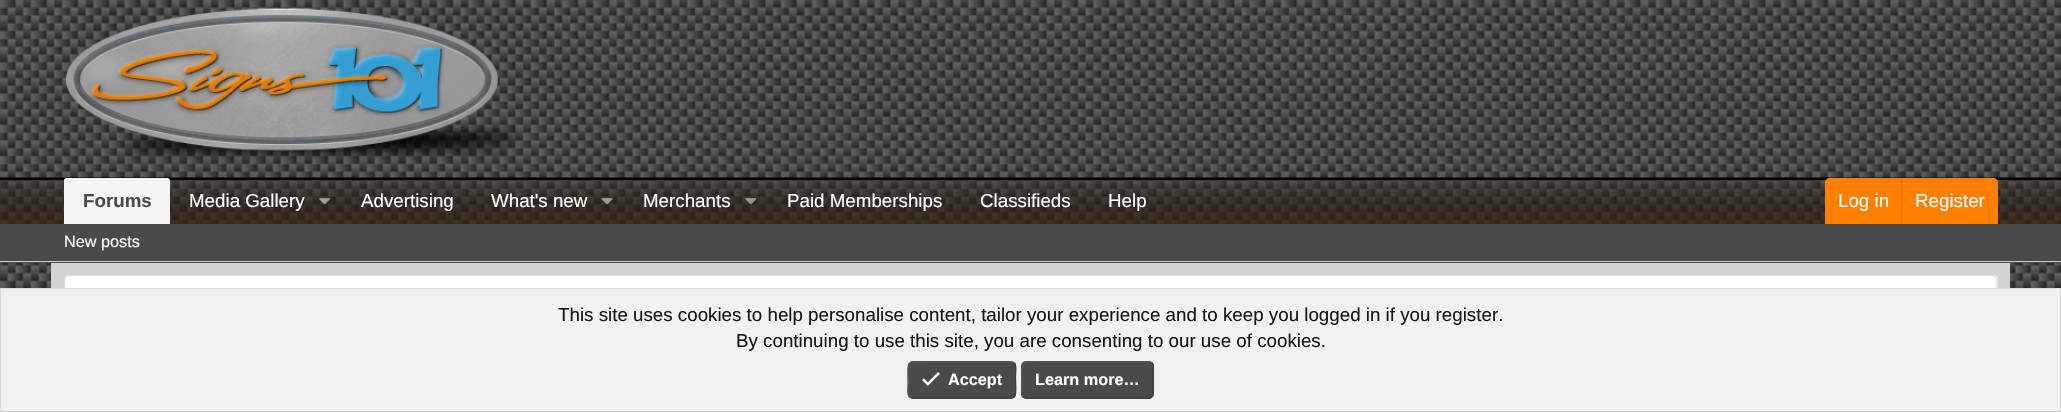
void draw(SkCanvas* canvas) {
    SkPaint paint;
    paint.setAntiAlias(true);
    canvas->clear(0xFFFFFFFF);
    canvas->drawImageRect(SkImages::DeferredFromEncodedData(SkData::MakeFromFileName("img1.png")), SkRect::MakeXYWH(0, 177, 2061, 111), SkSamplingOptions());
    canvas->drawImageRect(SkImages::DeferredFromEncodedData(SkData::MakeFromFileName("img2.png")), SkRect::MakeXYWH(0, 0, 2061, 178), SkSamplingOptions());
    canvas->drawImageRect(SkImages::DeferredFromEncodedData(SkData::MakeFromFileName("img3.png")), SkRect::MakeXYWH(65, 8, 454, 152), SkSamplingOptions());
    canvas->drawImageRect(SkImages::DeferredFromEncodedData(SkData::MakeFromFileName("img4.png")), SkRect::MakeXYWH(0, 177, 2061, 47), SkSamplingOptions());
    paint.setColor(0xFFF5F5F5);
    canvas->drawPath(SkPathBuilder().moveTo(66.5f, 178).lineTo(167.5f, 178).cubicTo(169, 178, 170, 179, 170, 180.5f).lineTo(170, 224).lineTo(64, 224).lineTo(64, 180.5f).cubicTo(64, 179, 65, 178, 66.5f, 178).close().detach(), paint);
    SkFont font1(fontMgr->matchFamilyStyle("Liberation Sans", SkFontStyle::Bold()), 18.75f);
    font1.setSubpixel(true);
    paint.setColor(0xFF4A4A4A);
    canvas->drawString("Forums", 83, 207, font1, paint);
    SkFont font2(fontMgr->matchFamilyStyle("Liberation Sans", SkFontStyle::Normal()), 18.75f);
    font2.setSubpixel(true);
    paint.setColor(0xFFFEFEFE);
    canvas->drawString("Media Gallery", 189, 207, font2, paint);
    canvas->drawImageRect(SkImages::DeferredFromEncodedData(SkData::MakeFromFileName("img5.png")), SkRect::MakeXYWH(319, 198, 11, 7), SkSamplingOptions());
    canvas->drawString("Advertising", 361, 207, font2, paint);
    canvas->drawString("What's new", 491, 207, font2, paint);
    canvas->drawImageRect(SkImages::DeferredFromEncodedData(SkData::MakeFromFileName("img6.png")), SkRect::MakeXYWH(601, 198, 12, 7), SkSamplingOptions());
    canvas->drawString("Merchants", 643, 207, font2, paint);
    canvas->drawImageRect(SkImages::DeferredFromEncodedData(SkData::MakeFromFileName("img7.png")), SkRect::MakeXYWH(745, 198, 12, 7), SkSamplingOptions());
    canvas->drawString("Paid Memberships", 787, 207, font2, paint);
    canvas->drawString("Classifieds", 980, 207, font2, paint);
    canvas->drawString("Help", 1108, 207, font2, paint);
    paint.setColor(0xFFFF7F00);
    canvas->drawPath(SkPathBuilder().moveTo(1830, 178).lineTo(1993, 178).cubicTo(1996, 178, 1998, 180, 1998, 183).lineTo(1998, 224).lineTo(1825, 224).lineTo(1825, 183).cubicTo(1825, 180, 1827, 178, 1830, 178).close().detach(), paint);
    paint.setColor(0xFFFEFEFE);
    canvas->drawString("Log in", 1838, 207, font2, paint);
    paint.setColor(0xFFE07408);
    canvas->drawRect(SkRect::MakeXYWH(1901, 178, 1, 46), paint);
    paint.setColor(0xFFFEFEFE);
    canvas->drawString("Register", 1915, 207, font2, paint);
    paint.setColor(0xFF4A4A4A);
    canvas->drawRect(SkRect::MakeXYWH(0, 224, 2061, 39), paint);
    paint.setColor(0xFFCBCBCB);
    canvas->drawRect(SkRect::MakeXYWH(0, 261, 2061, 1), paint);
    SkFont font3(fontMgr->matchFamilyStyle("Liberation Sans", SkFontStyle::Normal()), 16.25f);
    font3.setSubpixel(true);
    paint.setColor(0xFFFEFEFE);
    canvas->drawString("New posts", 64, 247, font3, paint);
    paint.setColor(0xFFD1D3D4);
    canvas->drawRect(SkRect::MakeXYWH(51, 263, 1959, 25), paint);
    paint.setColor(0xFFFEFEFE);
    canvas->drawRoundRect(SkRect::MakeXYWH(64, 275, 1934, 80), 5, 5, paint);
    paint.setStyle(SkPaint::kStroke_Style);
    paint.setStrokeWidth(1.2f);
    paint.setColor(0xFFDFDFDF);
    canvas->drawPath(SkPathBuilder().moveTo(65.5f, 277).lineTo(69, 275.5f).lineTo(1992.5f, 275.5f).lineTo(1995.5f, 277).detach(), paint);
    paint.setColor(0xFFD8D8D8);
    canvas->drawPath(SkPathBuilder().moveTo(1995.5f, 277).lineTo(1997, 279.5f).lineTo(1997, 350.5f).lineTo(1995.5f, 353).detach(), paint);
    canvas->drawPath(SkPathBuilder().moveTo(65.5f, 353).lineTo(64.5f, 350.5f).lineTo(64.5f, 279.5f).lineTo(65.5f, 277).detach(), paint);
    paint.setStyle(SkPaint::kFill_Style);
    paint.setColor(0xFFF0F1F1);
    canvas->drawRect(SkRect::MakeXYWH(1, 289, 2059, 122), paint);
    paint.setColor(0xFFDFDFDF);
    canvas->drawRect(SkRect::MakeXYWH(0, 288, 2061, 1), paint);
    paint.setColor(0xFFD8D8D8);
    canvas->drawRect(SkRect::MakeXYWH(2060, 288, 1, 124), paint);
    paint.setColor(0xFFCBCBCB);
    canvas->drawRect(SkRect::MakeXYWH(0, 411, 2061, 1), paint);
    paint.setColor(0xFFD8D8D8);
    canvas->drawRect(SkRect::MakeXYWH(0, 288, 1, 124), paint);
    paint.setColor(0xFF161616);
    canvas->drawString("This site uses cookies to help personalise content, tailor your experience and to keep you logged in if you register.", 558, 321, font2, paint);
    canvas->drawString("By continuing to use this site, you are consenting to our use of cookies.", 736, 347, font2, paint);
    paint.setColor(0xFF4A4A4A);
    canvas->drawRoundRect(SkRect::MakeXYWH(908, 361, 108, 38), 5, 5, paint);
    paint.setStyle(SkPaint::kStroke_Style);
    paint.setColor(0xFF3D3D3D);
    canvas->drawPath(SkPathBuilder().moveTo(1014.5f, 363).cubicTo(1017, 366, 1015.5f, 372.5f, 1015.5f, 375.5f).cubicTo(1015.5f, 401, 1020.5f, 398, 995, 398).lineTo(912.5f, 398).lineTo(909.5f, 397).detach(), paint);
    paint.setColor(0xFF575757);
    canvas->drawPath(SkPathBuilder().moveTo(909.5f, 397).cubicTo(906.5f, 394, 908, 387.5f, 908, 384.5f).cubicTo(908, 359, 903.5f, 362, 929, 362).lineTo(1011, 362).lineTo(1014.5f, 363).detach(), paint);
    canvas->drawImageRect(SkImages::DeferredFromEncodedData(SkData::MakeFromFileName("img8.png")), SkRect::MakeXYWH(922, 372, 18, 14), SkSamplingOptions());
    SkFont font4(fontMgr->matchFamilyStyle("Liberation Sans", SkFontStyle::Bold()), 16.25f);
    font4.setSubpixel(true);
    paint.setStyle(SkPaint::kFill_Style);
    paint.setColor(0xFFFEFEFE);
    canvas->drawString("Accept", 948, 385, font4, paint);
    paint.setColor(0xFF4A4A4A);
    canvas->drawRoundRect(SkRect::MakeXYWH(1021, 361, 133, 38), 5, 5, paint);
    paint.setStyle(SkPaint::kStroke_Style);
    paint.setColor(0xFF3D3D3D);
    canvas->drawPath(SkPathBuilder().moveTo(1152, 363).cubicTo(1154, 365, 1153, 368.5f, 1153, 371).lineTo(1153, 380).cubicTo(1153, 403, 1155, 398, 1128.5f, 398).lineTo(1026, 398).lineTo(1023, 397).detach(), paint);
    paint.setColor(0xFF575757);
    canvas->drawPath(SkPathBuilder().moveTo(1023, 397).cubicTo(1021, 395, 1022, 391.5f, 1022, 389).lineTo(1022, 380).cubicTo(1022, 357, 1020, 362, 1046.5f, 362).lineTo(1149, 362).lineTo(1152, 363).detach(), paint);
    paint.setStyle(SkPaint::kFill_Style);
    paint.setColor(0xFFFEFEFE);
    canvas->drawString("Learn more…", 1035, 385, font4, paint);
}
